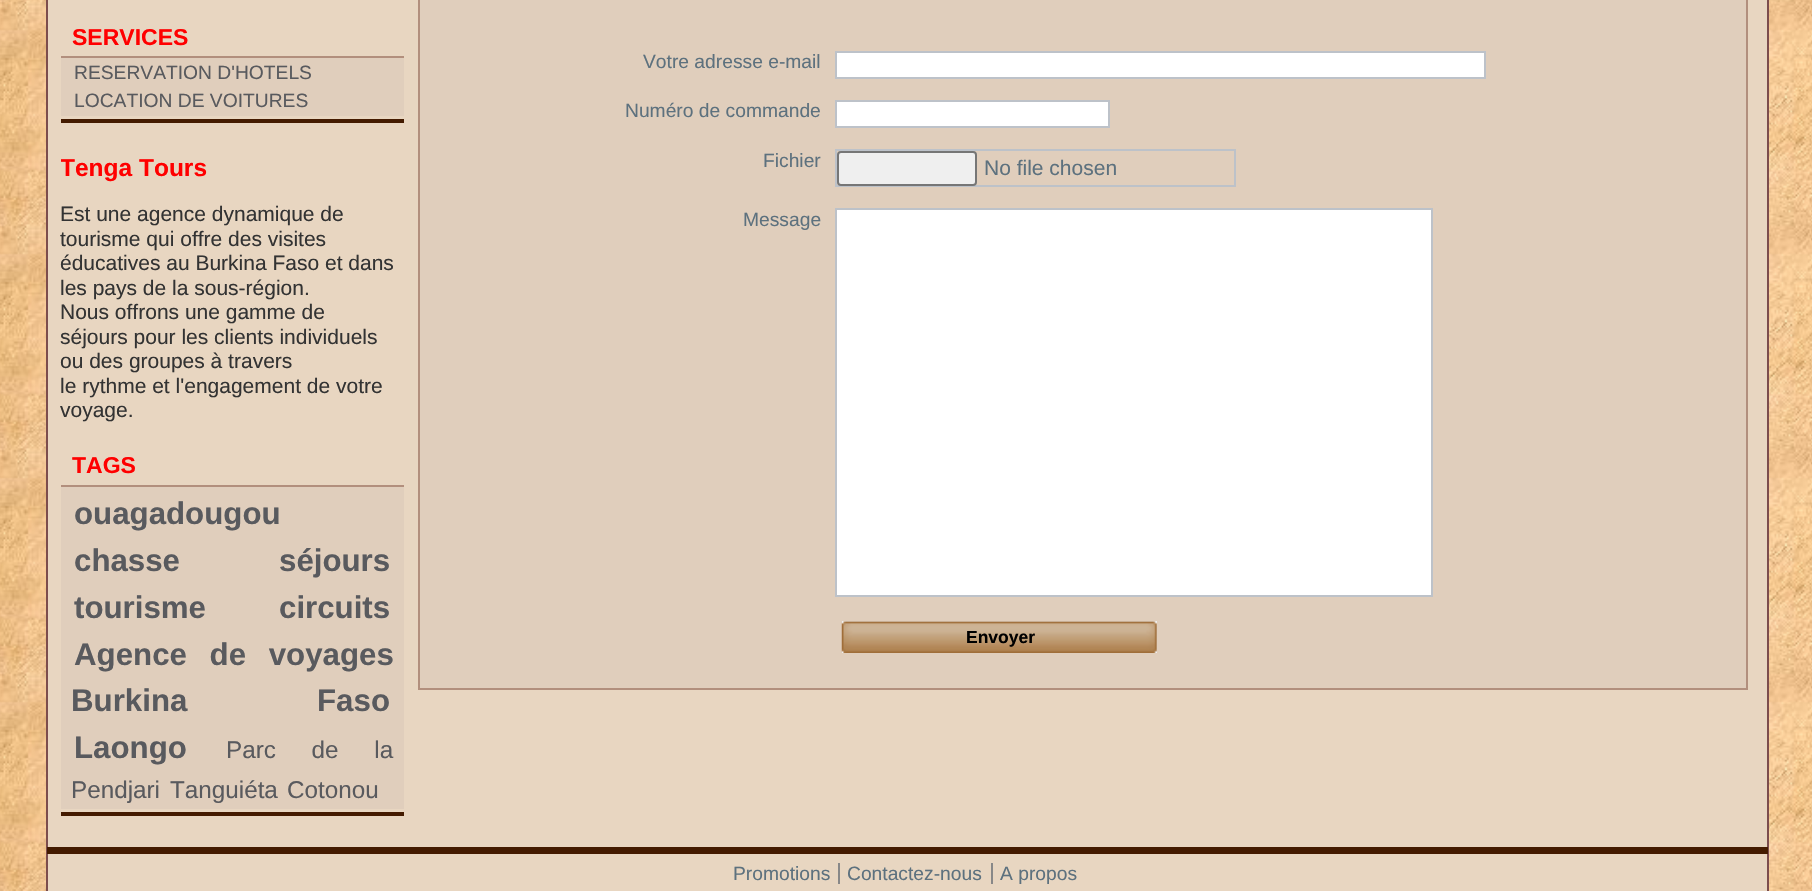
void draw(SkCanvas* canvas) {
    SkPaint paint;
    paint.setAntiAlias(true);
    auto spacedText = [&](const char* s, float x, float y, const SkFont& font, const SkPaint& ink, float letter, float word) {
        std::vector<SkGlyphID> glyphs(font.countText(s, strlen(s), SkTextEncoding::kUTF8));
        std::vector<float> xs(glyphs.size());
        font.textToGlyphs(s, strlen(s), SkTextEncoding::kUTF8, glyphs);
        font.getXPos(glyphs, xs, x);
        float extra = 0;
        for (size_t i = 0; i < glyphs.size(); i++) {
            xs[i] += extra;
            extra += letter + word * (glyphs[i] == font.unicharToGlyph(' '));
        }
        canvas->drawTextBlob(SkTextBlob::MakeFromPosHGlyphs(glyphs, xs, y, font), 0, 0, ink);
    };
    canvas->clear(0xFFFFFFFF);
    canvas->drawImageRect(SkImages::DeferredFromEncodedData(SkData::MakeFromFileName("img1.png")), SkRect::MakeXYWH(0, 0, 1812, 891), SkSamplingOptions());
    paint.setColor(0xFFE8D6C1);
    canvas->drawRect(SkRect::MakeXYWH(47, -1, 1721, 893), paint);
    paint.setStyle(SkPaint::kStroke_Style);
    paint.setStrokeWidth(2);
    paint.setColor(0xFF7C4D4D);
    canvas->drawRect(SkRect::MakeXYWH(47, -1, 1721, 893), paint);
    paint.setStyle(SkPaint::kFill_Style);
    paint.setColor(0xFF441B00);
    canvas->drawRect(SkRect::MakeXYWH(61, 119, 343, 4), paint);
    paint.setColor(0xFFB28F7D);
    canvas->drawRect(SkRect::MakeXYWH(61, 56, 343, 2), paint);
    SkFont font1(fontMgr->matchFamilyStyle("Liberation Sans", SkFontStyle::Bold()), 23);
    font1.setSubpixel(true);
    paint.setColor(0xFFFF0000);
    canvas->drawString("SERVICES", 72, 45, font1, paint);
    paint.setColor(0xFFE0CEBC);
    canvas->drawRect(SkRect::MakeXYWH(61, 58, 343, 58), paint);
    SkFont font2(fontMgr->matchFamilyStyle("Liberation Sans", SkFontStyle::Normal()), 19.25f);
    font2.setSubpixel(true);
    paint.setColor(0xFF595A5E);
    canvas->drawString("RESERVATION D'HOTELS", 74, 79, font2, paint);
    canvas->drawString("LOCATION DE VOITURES", 74, 107, font2, paint);
    canvas->save();
    canvas->clipRect(SkRect::MakeXYWH(61, 0, 343, 847));
    SkFont font3(fontMgr->matchFamilyStyle("Liberation Sans", SkFontStyle::Bold()), 24.5f);
    font3.setSubpixel(true);
    paint.setColor(0xFFFF0000);
    canvas->drawString("Tenga Tours", 60, 176, font3, paint);
    canvas->restore();
    SkFont font4(fontMgr->matchFamilyStyle("Liberation Sans", SkFontStyle::Normal()), 21);
    font4.setSubpixel(true);
    paint.setColor(0xFF333333);
    canvas->drawString("Est une agence dynamique de", 60, 221, font4, paint);
    canvas->drawString("tourisme qui offre des visites", 60, 246, font4, paint);
    canvas->drawString("éducatives au Burkina Faso et dans", 60, 270, font4, paint);
    canvas->drawString("les pays de la sous-région.", 60, 295, font4, paint);
    canvas->drawString("Nous offrons une gamme de", 60, 319, font4, paint);
    canvas->drawString("séjours pour les clients individuels", 60, 344, font4, paint);
    canvas->drawString("ou des groupes à travers", 60, 368, font4, paint);
    canvas->drawString("le rythme et l'engagement de votre", 60, 393, font4, paint);
    canvas->drawString("voyage.", 60, 417, font4, paint);
    paint.setColor(0xFF441B00);
    canvas->drawRect(SkRect::MakeXYWH(61, 812, 343, 4), paint);
    paint.setColor(0xFFB28F7D);
    canvas->drawRect(SkRect::MakeXYWH(61, 485, 343, 2), paint);
    paint.setColor(0xFFFF0000);
    canvas->drawString("TAGS", 72, 473, font1, paint);
    paint.setColor(0xFFE0CEBC);
    canvas->drawRect(SkRect::MakeXYWH(61, 487, 343, 322), paint);
    SkFont font5(fontMgr->matchFamilyStyle("Liberation Sans", SkFontStyle::Bold()), 31.25f);
    font5.setSubpixel(true);
    paint.setColor(0xFF595A5E);
    canvas->drawString("ouagadougou", 74, 524, font5, paint);
    canvas->drawString("chasse", 74, 571, font5, paint);
    canvas->drawString("séjours", 279, 571, font5, paint);
    canvas->drawString("tourisme", 74, 618, font5, paint);
    canvas->drawString("circuits", 279, 618, font5, paint);
    spacedText("Agence de voyages", 74, 665, font5, paint, 0, 14);
    spacedText("Burkina Faso", 71, 711, font5, paint, 0, 121);
    canvas->drawString("Laongo", 74, 758, font5, paint);
    SkFont font6(fontMgr->matchFamilyStyle("Liberation Sans", SkFontStyle::Normal()), 24.25f);
    font6.setSubpixel(true);
    spacedText("Parc de la", 226, 758, font6, paint, 0, 29);
    canvas->drawString("Pendjari", 71, 798, font6, paint);
    canvas->drawString("Tanguiéta", 170, 798, font6, paint);
    canvas->drawString("Cotonou", 287, 798, font6, paint);
    paint.setColor(0xFFE0CEBC);
    canvas->drawRect(SkRect::MakeXYWH(419, -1, 1328, 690), paint);
    paint.setStyle(SkPaint::kStroke_Style);
    paint.setColor(0xFFB28F7D);
    canvas->drawRect(SkRect::MakeXYWH(419, -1, 1328, 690), paint);
    paint.setStyle(SkPaint::kFill_Style);
    paint.setColor(0xFF5D717E);
    canvas->drawString("Votre adresse e-mail", 643, 68, font2, paint);
    paint.setColor(0xFFFFFFFF);
    canvas->drawRect(SkRect::MakeXYWH(836, 52, 649, 26), paint);
    paint.setStyle(SkPaint::kStroke_Style);
    paint.setColor(0xFFBDC2C9);
    canvas->drawRect(SkRect::MakeXYWH(836, 52, 649, 26), paint);
    paint.setStyle(SkPaint::kFill_Style);
    paint.setColor(0xFF5D717E);
    canvas->drawString("Numéro de commande", 625, 117, font2, paint);
    paint.setColor(0xFFFFFFFF);
    canvas->drawRect(SkRect::MakeXYWH(836, 101, 273, 26), paint);
    paint.setStyle(SkPaint::kStroke_Style);
    paint.setColor(0xFFBDC2C9);
    canvas->drawRect(SkRect::MakeXYWH(836, 101, 273, 26), paint);
    paint.setStyle(SkPaint::kFill_Style);
    paint.setColor(0xFF5D717E);
    canvas->drawString("Fichier", 763, 167, font2, paint);
    paint.setStyle(SkPaint::kStroke_Style);
    paint.setColor(0xFFBDC2C9);
    canvas->drawRect(SkRect::MakeXYWH(836, 150, 399, 36), paint);
    paint.setStyle(SkPaint::kFill_Style);
    paint.setColor(0xFFEFEFEF);
    canvas->drawRoundRect(SkRect::MakeXYWH(838, 152, 138, 33), 3, 3, paint);
    paint.setStyle(SkPaint::kStroke_Style);
    paint.setColor(0xFF767676);
    canvas->drawRoundRect(SkRect::MakeXYWH(838, 152, 138, 33), 3, 3, paint);
    paint.setStyle(SkPaint::kFill_Style);
    paint.setColor(0xFF5D717E);
    canvas->drawString("No file chosen", 984, 175, font4, paint);
    canvas->drawString("Message", 743, 226, font2, paint);
    paint.setColor(0xFFFFFFFF);
    canvas->drawRect(SkRect::MakeXYWH(836, 209, 596, 387), paint);
    paint.setStyle(SkPaint::kStroke_Style);
    paint.setColor(0xFFBDC2C9);
    canvas->drawRect(SkRect::MakeXYWH(836, 209, 596, 387), paint);
    paint.setStyle(SkPaint::kFill_Style);
    paint.setColor(0xFFEFEFEF);
    canvas->drawRect(SkRect::MakeXYWH(842, 621, 315, 32), paint);
    canvas->drawImageRect(SkImages::DeferredFromEncodedData(SkData::MakeFromFileName("img2.png")), SkRect::MakeXYWH(841, 621, 316, 32), SkSamplingOptions());
    SkFont font7(fontMgr->matchFamilyStyle("Liberation Sans", SkFontStyle::Bold()), 17.5f);
    font7.setSubpixel(true);
    paint.setColor(0xFF000000);
    canvas->drawString("Envoyer", 966, 643, font7, paint);
    paint.setColor(0xFF441B00);
    canvas->drawRect(SkRect::MakeXYWH(47, 847, 1721, 7), paint);
    paint.setColor(0xFF5D717E);
    canvas->drawString("Promotions", 733, 880, font2, paint);
    canvas->drawString("Contactez-nous", 847, 880, font2, paint);
    paint.setColor(0xFF888888);
    canvas->drawRect(SkRect::MakeXYWH(838, 863, 2, 21), paint);
    paint.setColor(0xFF5D717E);
    canvas->drawString("A propos", 1000, 880, font2, paint);
    paint.setColor(0xFF888888);
    canvas->drawRect(SkRect::MakeXYWH(991, 863, 2, 21), paint);
}
